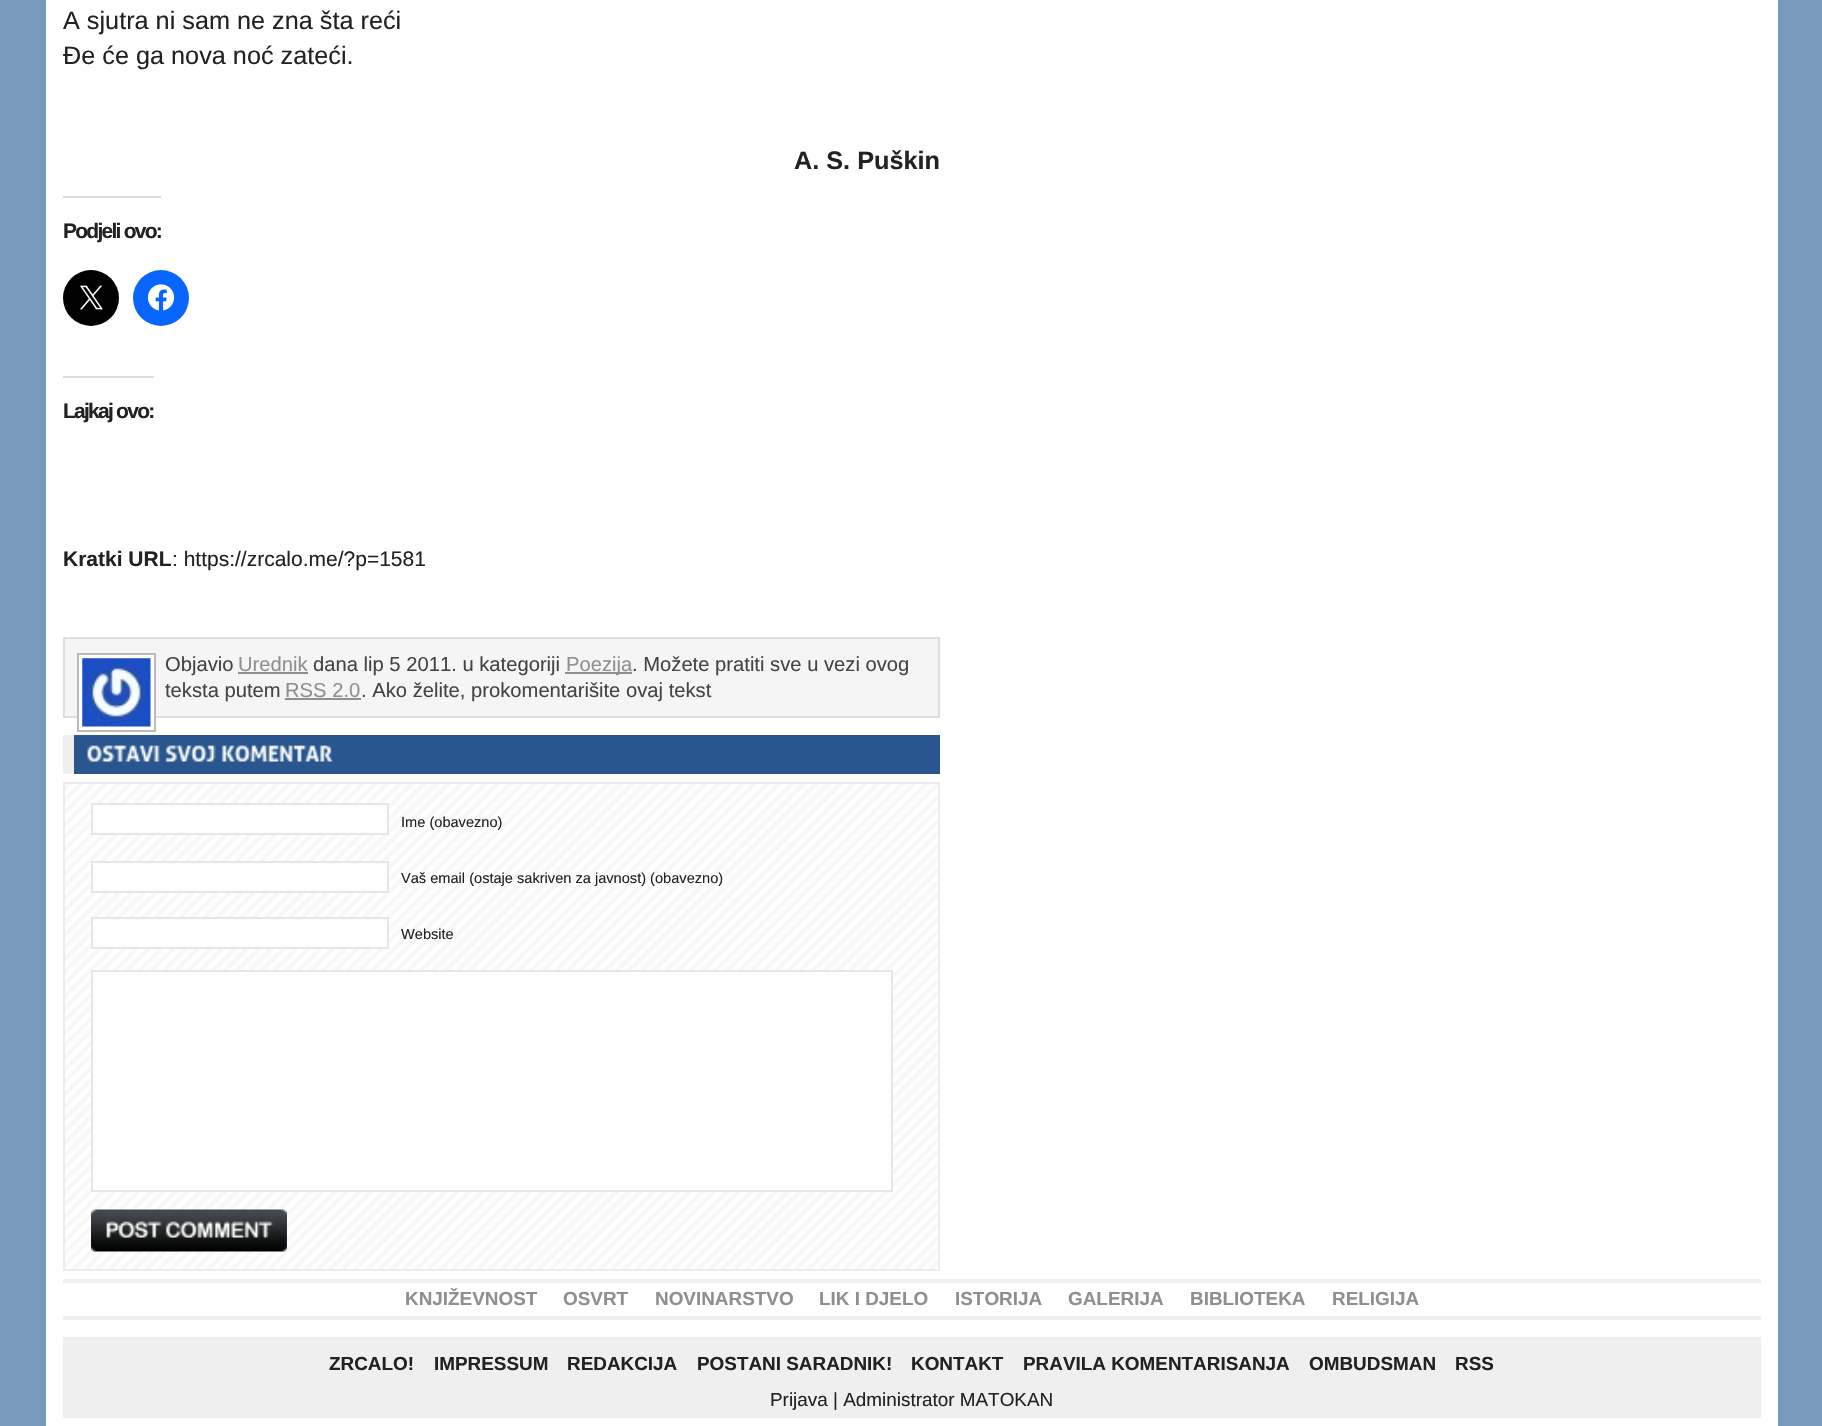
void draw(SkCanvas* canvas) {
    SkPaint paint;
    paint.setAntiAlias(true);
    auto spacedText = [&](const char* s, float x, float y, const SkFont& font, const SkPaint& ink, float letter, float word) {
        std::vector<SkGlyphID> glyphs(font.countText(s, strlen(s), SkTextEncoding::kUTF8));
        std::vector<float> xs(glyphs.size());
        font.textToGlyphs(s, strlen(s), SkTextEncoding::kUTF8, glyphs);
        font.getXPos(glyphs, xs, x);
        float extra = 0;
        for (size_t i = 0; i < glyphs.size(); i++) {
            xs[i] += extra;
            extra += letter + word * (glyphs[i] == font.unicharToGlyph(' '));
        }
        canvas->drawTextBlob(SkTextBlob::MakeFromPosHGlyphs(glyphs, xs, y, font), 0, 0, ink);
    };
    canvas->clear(0xFF7799BC);
    paint.setColor(0xFFFFFFFF);
    canvas->drawRect(SkRect::MakeXYWH(46, 0, 1732, 1426), paint);
    SkFont font1(fontMgr->matchFamilyStyle("Liberation Sans", SkFontStyle::Normal()), 25.25f);
    font1.setSubpixel(true);
    paint.setColor(0xFF222222);
    canvas->drawString("A sjutra ni sam ne zna šta reći", 63, 29, font1, paint);
    canvas->drawString("Đe će ga nova noć zateći.", 63, 64, font1, paint);
    SkFont font2(fontMgr->matchFamilyStyle("Liberation Sans", SkFontStyle::Bold()), 25.25f);
    font2.setSubpixel(true);
    canvas->drawString("A. S. Puškin", 794, 169, font2, paint);
    paint.setColor(0xFFDCDCDE);
    canvas->drawRect(SkRect::MakeXYWH(63, 196, 98, 2), paint);
    SkFont font3(fontMgr->matchFamilyStyle("Liberation Sans", SkFontStyle::Bold()), 21);
    font3.setSubpixel(true);
    paint.setColor(0xFF222222);
    spacedText("Podjeli ovo:", 63, 238, font3, paint, -1.75f, 0);
    paint.setColor(0xFF000000);
    canvas->drawCircle(91, 298, 28, paint);
    canvas->drawImageRect(SkImages::DeferredFromEncodedData(SkData::MakeFromFileName("img1.png")), SkRect::MakeXYWH(80, 285, 23, 25), SkSamplingOptions());
    paint.setColor(0xFF0866FF);
    canvas->drawCircle(161, 298, 28, paint);
    canvas->drawImageRect(SkImages::DeferredFromEncodedData(SkData::MakeFromFileName("img2.png")), SkRect::MakeXYWH(147, 284, 28, 27), SkSamplingOptions());
    paint.setColor(0xFFDCDCDE);
    canvas->drawRect(SkRect::MakeXYWH(63, 376, 91, 2), paint);
    paint.setColor(0xFF222222);
    spacedText("Lajkaj ovo:", 63, 418, font3, paint, -1.75f, 0);
    canvas->drawString("Kratki URL", 63, 566, font3, paint);
    SkFont font4(fontMgr->matchFamilyStyle("Liberation Sans", SkFontStyle::Normal()), 21);
    font4.setSubpixel(true);
    canvas->drawString(": https://zrcalo.me/?p=1581", 172, 566, font4, paint);
    paint.setColor(0xFFF5F5F5);
    canvas->drawRect(SkRect::MakeXYWH(64, 638, 875, 79), paint);
    paint.setStyle(SkPaint::kStroke_Style);
    paint.setStrokeWidth(2);
    paint.setColor(0xFFDDDDDD);
    canvas->drawRect(SkRect::MakeXYWH(64, 638, 875, 79), paint);
    paint.setStyle(SkPaint::kFill_Style);
    paint.setColor(0xFFFFFFFF);
    canvas->drawRect(SkRect::MakeXYWH(79, 655, 75, 63), paint);
    paint.setStyle(SkPaint::kStroke_Style);
    paint.setColor(0xFFBBBBBB);
    canvas->drawRect(SkRect::MakeXYWH(78, 654, 77, 77), paint);
    canvas->drawImageRect(SkImages::DeferredFromEncodedData(SkData::MakeFromFileName("img3.png")), SkRect::MakeXYWH(82, 658, 69, 69), SkSamplingOptions());
    SkFont font5(fontMgr->matchFamilyStyle("Liberation Sans", SkFontStyle::Normal()), 20.2f);
    font5.setSubpixel(true);
    paint.setStyle(SkPaint::kFill_Style);
    paint.setColor(0xFF444444);
    canvas->drawString("Objavio", 165, 671, font5, paint);
    paint.setColor(0xFF8F8F8F);
    canvas->drawString("Urednik", 238, 671, font5, paint);
    canvas->drawRect(SkRect::MakeXYWH(238, 672, 70, 2), paint);
    paint.setColor(0xFF444444);
    canvas->drawString("dana lip 5 2011. u kategoriji", 313, 671, font5, paint);
    paint.setColor(0xFF8F8F8F);
    canvas->drawRect(SkRect::MakeXYWH(565, 672, 67, 2), paint);
    canvas->drawString("Poezija", 566, 671, font5, paint);
    paint.setColor(0xFF444444);
    canvas->drawString(". Možete pratiti sve u vezi ovog", 632, 671, font5, paint);
    canvas->drawString("teksta putem", 165, 697, font5, paint);
    paint.setColor(0xFF8F8F8F);
    canvas->drawString("RSS 2.0", 285, 697, font5, paint);
    canvas->drawRect(SkRect::MakeXYWH(285, 698, 76, 2), paint);
    paint.setColor(0xFF444444);
    canvas->drawString(". Ako želite, prokomentarišite ovaj tekst", 361, 697, font5, paint);
    paint.setColor(0xFF29568F);
    canvas->drawRect(SkRect::MakeXYWH(74, 735, 866, 39), paint);
    paint.setColor(0xFFEFEFEF);
    canvas->drawRect(SkRect::MakeXYWH(63, 735, 11, 39), paint);
    canvas->drawImageRect(SkImages::DeferredFromEncodedData(SkData::MakeFromFileName("img4.png")), SkRect::MakeXYWH(87, 745, 73, 17), SkSamplingOptions());
    canvas->drawImageRect(SkImages::DeferredFromEncodedData(SkData::MakeFromFileName("img5.png")), SkRect::MakeXYWH(165, 745, 51, 17), SkSamplingOptions());
    canvas->drawImageRect(SkImages::DeferredFromEncodedData(SkData::MakeFromFileName("img6.png")), SkRect::MakeXYWH(221, 745, 112, 17), SkSamplingOptions());
    canvas->drawImageRect(SkImages::DeferredFromEncodedData(SkData::MakeFromFileName("img7.png")), SkRect::MakeXYWH(65, 784, 873, 485), SkSamplingOptions());
    paint.setStyle(SkPaint::kStroke_Style);
    paint.setColor(0xFFECECEC);
    canvas->drawRect(SkRect::MakeXYWH(64, 783, 875, 487), paint);
    paint.setStyle(SkPaint::kFill_Style);
    paint.setColor(0xFFFEFEFE);
    canvas->drawRect(SkRect::MakeXYWH(92, 804, 296, 30), paint);
    paint.setStyle(SkPaint::kStroke_Style);
    paint.setColor(0xFFE6E6E6);
    canvas->drawRect(SkRect::MakeXYWH(92, 804, 296, 30), paint);
    SkFont font6(fontMgr->matchFamilyStyle("Liberation Sans", SkFontStyle::Normal()), 14.6f);
    font6.setSubpixel(true);
    paint.setStyle(SkPaint::kFill_Style);
    paint.setColor(0xFF222222);
    canvas->drawString("Ime (obavezno)", 401, 827, font6, paint);
    paint.setColor(0xFFFEFEFE);
    canvas->drawRect(SkRect::MakeXYWH(92, 862, 296, 30), paint);
    paint.setStyle(SkPaint::kStroke_Style);
    paint.setColor(0xFFE6E6E6);
    canvas->drawRect(SkRect::MakeXYWH(92, 862, 296, 30), paint);
    paint.setStyle(SkPaint::kFill_Style);
    paint.setColor(0xFF222222);
    canvas->drawString("Vaš email (ostaje sakriven za javnost) (obavezno)", 401, 883, font6, paint);
    paint.setColor(0xFFFEFEFE);
    canvas->drawRect(SkRect::MakeXYWH(92, 918, 296, 30), paint);
    paint.setStyle(SkPaint::kStroke_Style);
    paint.setColor(0xFFE6E6E6);
    canvas->drawRect(SkRect::MakeXYWH(92, 918, 296, 30), paint);
    paint.setStyle(SkPaint::kFill_Style);
    paint.setColor(0xFF222222);
    canvas->drawString("Website", 401, 939, font6, paint);
    paint.setColor(0xFFFEFEFE);
    canvas->drawRect(SkRect::MakeXYWH(92, 971, 800, 220), paint);
    paint.setStyle(SkPaint::kStroke_Style);
    paint.setColor(0xFFE6E6E6);
    canvas->drawRect(SkRect::MakeXYWH(92, 971, 800, 220), paint);
    canvas->drawImageRect(SkImages::DeferredFromEncodedData(SkData::MakeFromFileName("img8.png")), SkRect::MakeXYWH(91, 1209, 196, 43), SkSamplingOptions());
    paint.setStyle(SkPaint::kFill_Style);
    paint.setColor(0xFFEFEFEF);
    canvas->drawRect(SkRect::MakeXYWH(63, 1279, 1698, 4), paint);
    canvas->drawRect(SkRect::MakeXYWH(63, 1316, 1698, 4), paint);
    SkFont font7(fontMgr->matchFamilyStyle("Liberation Sans", SkFontStyle::Bold()), 18.9f);
    font7.setSubpixel(true);
    paint.setColor(0xFF8F8F8F);
    canvas->drawString("KNJIŽEVNOST", 405, 1305, font7, paint);
    canvas->drawString("OSVRT", 563, 1305, font7, paint);
    canvas->drawString("NOVINARSTVO", 655, 1305, font7, paint);
    canvas->drawString("LIK I DJELO", 819, 1305, font7, paint);
    canvas->drawString("ISTORIJA", 955, 1305, font7, paint);
    canvas->drawString("GALERIJA", 1068, 1305, font7, paint);
    canvas->drawString("BIBLIOTEKA", 1190, 1305, font7, paint);
    canvas->drawString("RELIGIJA", 1332, 1305, font7, paint);
    paint.setColor(0xFFEFEFEF);
    canvas->drawRect(SkRect::MakeXYWH(63, 1337, 1698, 81), paint);
    paint.setColor(0xFF222222);
    canvas->drawString("ZRCALO!", 329, 1370, font7, paint);
    canvas->drawString("IMPRESSUM", 434, 1370, font7, paint);
    canvas->drawString("REDAKCIJA", 567, 1370, font7, paint);
    canvas->drawString("POSTANI SARADNIK!", 697, 1370, font7, paint);
    canvas->drawString("KONTAKT", 911, 1370, font7, paint);
    canvas->drawString("PRAVILA KOMENTARISANJA", 1023, 1370, font7, paint);
    canvas->drawString("OMBUDSMAN", 1309, 1370, font7, paint);
    canvas->drawString("RSS", 1455, 1370, font7, paint);
    SkFont font8(fontMgr->matchFamilyStyle("Liberation Sans", SkFontStyle::Normal()), 18.9f);
    font8.setSubpixel(true);
    canvas->drawString("Prijava | Administrator MATOKAN", 770, 1406, font8, paint);
}
